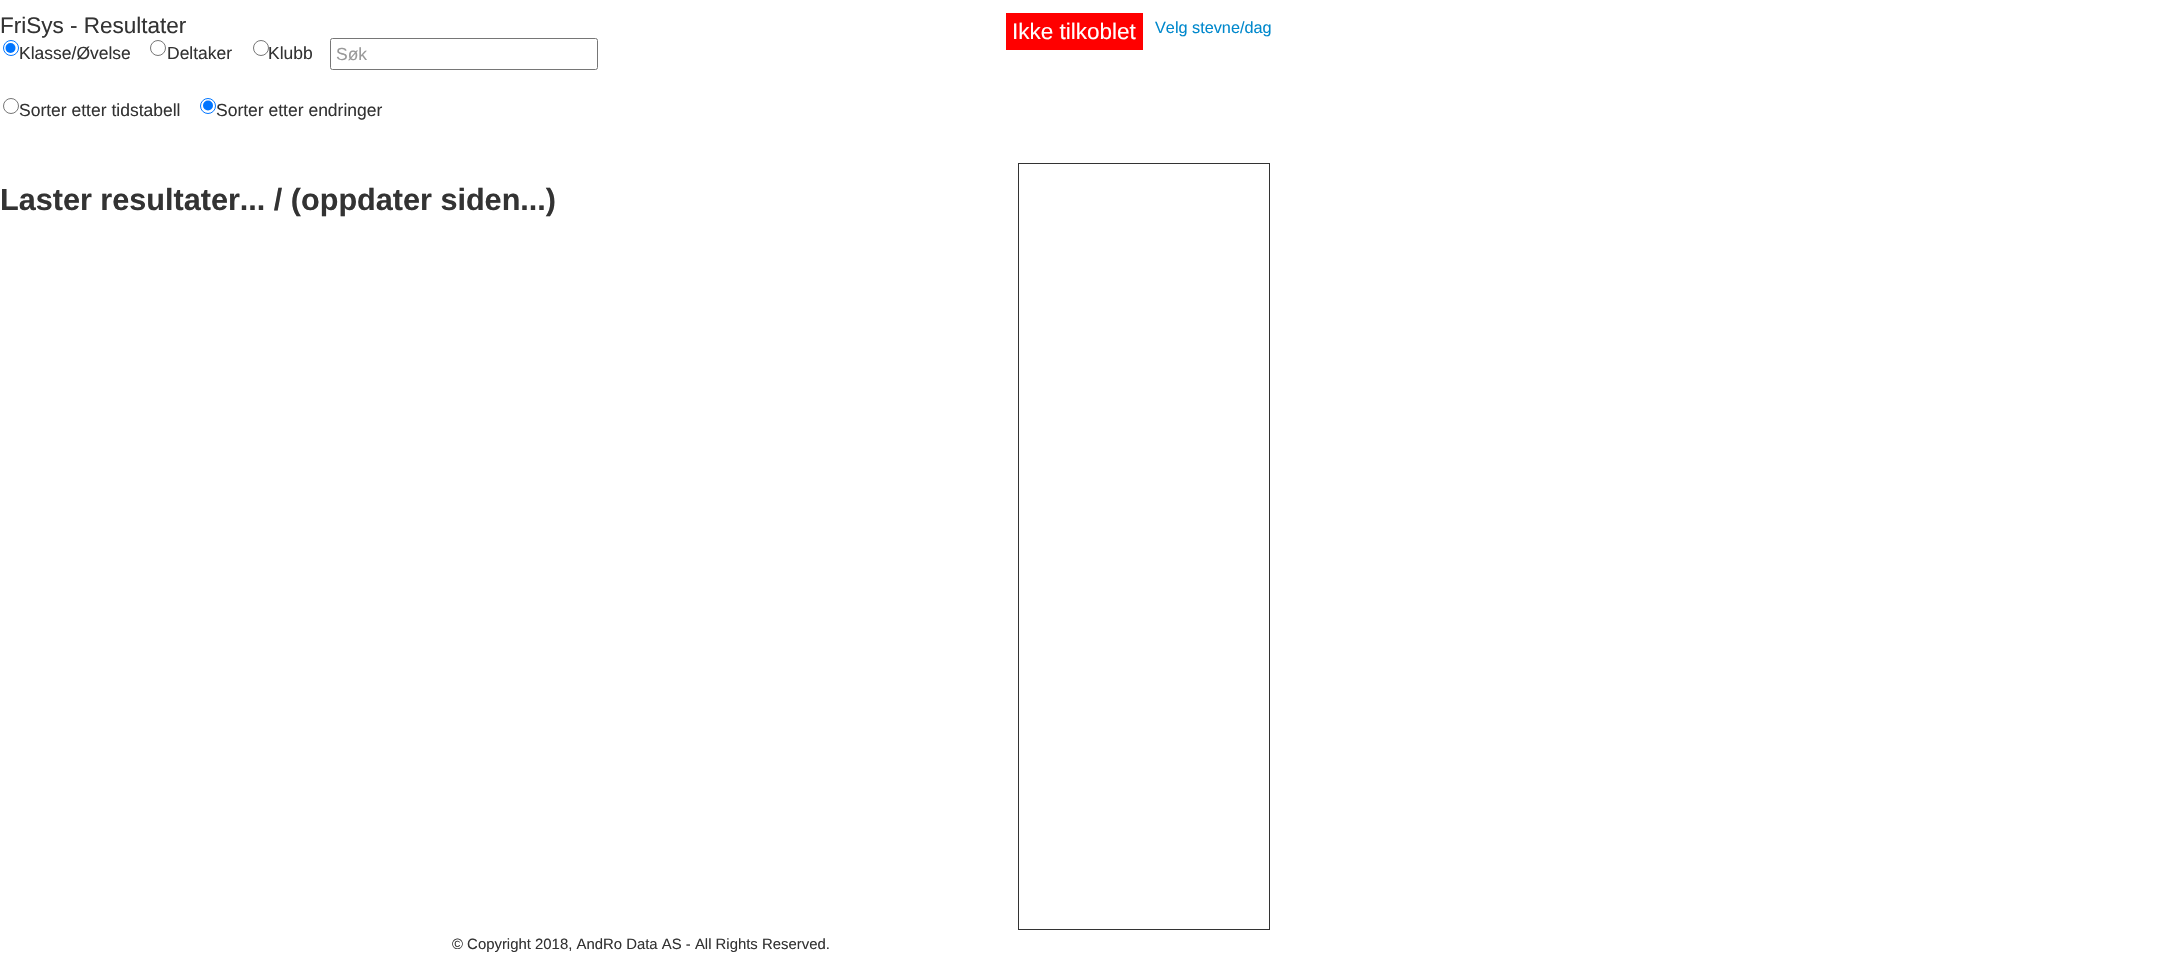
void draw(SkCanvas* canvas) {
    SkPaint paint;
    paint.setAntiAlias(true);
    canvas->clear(0xFFFFFFFF);
    SkFont font1(fontMgr->matchFamilyStyle("Liberation Sans", SkFontStyle::Normal()), 22.5f);
    font1.setSubpixel(true);
    paint.setColor(0xFF333333);
    canvas->drawString("FriSys - Resultater", 0, 33, font1, paint);
    paint.setColor(0xFFFF0000);
    canvas->drawRect(SkRect::MakeXYWH(1006, 13, 137, 37), paint);
    paint.setColor(0xFFFFFFFF);
    canvas->drawString("Ikke tilkoblet", 1012, 39, font1, paint);
    SkFont font2(fontMgr->matchFamilyStyle("Liberation Sans", SkFontStyle::Normal()), 16.25f);
    font2.setSubpixel(true);
    paint.setColor(0xFF0088CC);
    canvas->drawString("Velg stevne/dag", 1155, 33, font2, paint);
    paint.setStyle(SkPaint::kStroke_Style);
    paint.setStrokeWidth(1);
    paint.setColor(0xFF0075FF);
    canvas->drawCircle(11, 48, 7.5f, paint);
    paint.setStyle(SkPaint::kFill_Style);
    canvas->drawCircle(10.5f, 48, 5, paint);
    SkFont font3(fontMgr->matchFamilyStyle("Liberation Sans", SkFontStyle::Normal()), 17.5f);
    font3.setSubpixel(true);
    paint.setColor(0xFF333333);
    canvas->drawString("Klasse/Øvelse", 19, 59, font3, paint);
    paint.setStyle(SkPaint::kStroke_Style);
    paint.setColor(0xFF767676);
    canvas->drawCircle(158, 48, 7.5f, paint);
    paint.setStyle(SkPaint::kFill_Style);
    paint.setColor(0xFF333333);
    canvas->drawString("Deltaker", 167, 59, font3, paint);
    paint.setStyle(SkPaint::kStroke_Style);
    paint.setColor(0xFF767676);
    canvas->drawCircle(261, 48, 7.5f, paint);
    paint.setStyle(SkPaint::kFill_Style);
    paint.setColor(0xFF333333);
    canvas->drawString("Klubb", 268, 59, font3, paint);
    paint.setStyle(SkPaint::kStroke_Style);
    paint.setColor(0xFF767676);
    canvas->drawRoundRect(SkRect::MakeXYWH(330.5f, 38.5f, 267, 31), 2, 2, paint);
    paint.setStyle(SkPaint::kFill_Style);
    paint.setColor(0xFF999999);
    canvas->drawString("Søk", 336, 60, font3, paint);
    paint.setStyle(SkPaint::kStroke_Style);
    paint.setColor(0xFF767676);
    canvas->drawCircle(11, 106, 7.5f, paint);
    paint.setStyle(SkPaint::kFill_Style);
    paint.setColor(0xFF333333);
    canvas->drawString("Sorter etter tidstabell", 19, 116, font3, paint);
    paint.setStyle(SkPaint::kStroke_Style);
    paint.setColor(0xFF0075FF);
    canvas->drawCircle(208, 106, 7.5f, paint);
    paint.setStyle(SkPaint::kFill_Style);
    canvas->drawCircle(208, 105.5f, 5, paint);
    paint.setColor(0xFF333333);
    canvas->drawString("Sorter etter endringer", 216, 116, font3, paint);
    SkFont font4(fontMgr->matchFamilyStyle("Liberation Sans", SkFontStyle::Bold()), 30.6f);
    font4.setSubpixel(true);
    canvas->drawString("Laster resultater... / (oppdater siden...)", 0, 210, font4, paint);
    paint.setStyle(SkPaint::kStroke_Style);
    canvas->drawRect(SkRect::MakeXYWH(1018.5f, 163.5f, 251, 766), paint);
    SkFont font5(fontMgr->matchFamilyStyle("Liberation Sans", SkFontStyle::Normal()), 14.9f);
    font5.setSubpixel(true);
    paint.setStyle(SkPaint::kFill_Style);
    canvas->drawString("© Copyright 2018, AndRo Data AS - All Rights Reserved.", 452, 949, font5, paint);
}
